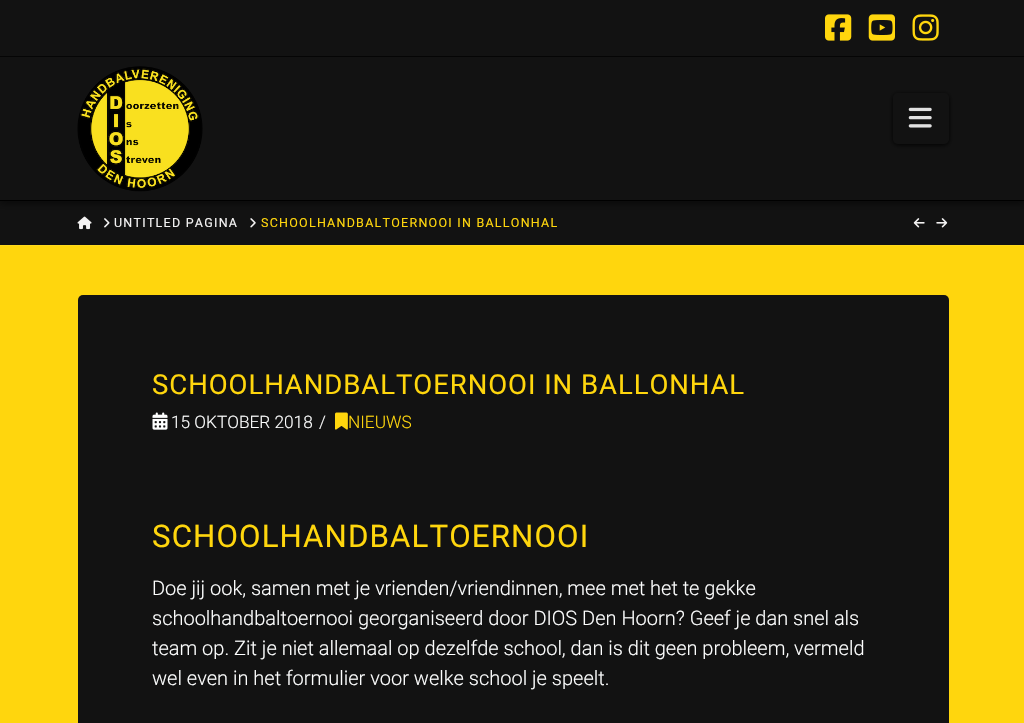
void draw(SkCanvas* canvas) {
    SkPaint paint;
    paint.setAntiAlias(true);
    auto spacedText = [&](const char* s, float x, float y, const SkFont& font, const SkPaint& ink, float letter, float word) {
        std::vector<SkGlyphID> glyphs(font.countText(s, strlen(s), SkTextEncoding::kUTF8));
        std::vector<float> xs(glyphs.size());
        font.textToGlyphs(s, strlen(s), SkTextEncoding::kUTF8, glyphs);
        font.getXPos(glyphs, xs, x);
        float extra = 0;
        for (size_t i = 0; i < glyphs.size(); i++) {
            xs[i] += extra;
            extra += letter + word * (glyphs[i] == font.unicharToGlyph(' '));
        }
        canvas->drawTextBlob(SkTextBlob::MakeFromPosHGlyphs(glyphs, xs, y, font), 0, 0, ink);
    };
    canvas->clear(0xFFFFD60D);
    paint.setColor(0xFF121212);
    canvas->drawRect(SkRect::MakeXYWH(0, 201, 1024, 44), paint);
    paint.setColor(0x78000000);
    paint.setMaskFilter(SkMaskFilter::MakeBlur(kNormal_SkBlurStyle, 3.5f));
    canvas->drawRect(SkRect::MakeXYWH(0, 60, 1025, 144), paint);
    paint.setMaskFilter(nullptr);
    paint.setColor(0xFF121212);
    canvas->drawRect(SkRect::MakeXYWH(0, 0, 1024, 200), paint);
    paint.setColor(0xFF000000);
    canvas->drawRect(SkRect::MakeXYWH(0, 200, 1024, 1), paint);
    canvas->drawImageRect(SkImages::DeferredFromEncodedData(SkData::MakeFromFileName("img1.png")), SkRect::MakeXYWH(77, 66, 126, 126), SkSamplingOptions());
    paint.setMaskFilter(SkMaskFilter::MakeBlur(kNormal_SkBlurStyle, 2.5f));
    canvas->drawRoundRect(SkRect::MakeXYWH(893, 94, 56, 51), 5, 5, paint);
    paint.setMaskFilter(nullptr);
    paint.setColor(0xFF121212);
    canvas->drawRoundRect(SkRect::MakeXYWH(893, 93, 56, 51), 5, 5, paint);
    canvas->drawImageRect(SkImages::DeferredFromEncodedData(SkData::MakeFromFileName("img2.png")), SkRect::MakeXYWH(908, 107, 24, 21), SkSamplingOptions());
    paint.setColor(0xFF050505);
    canvas->drawRect(SkRect::MakeXYWH(0, 56, 1024, 1), paint);
    canvas->drawImageRect(SkImages::DeferredFromEncodedData(SkData::MakeFromFileName("img3.png")), SkRect::MakeXYWH(825, 14, 27, 27), SkSamplingOptions());
    canvas->drawImageRect(SkImages::DeferredFromEncodedData(SkData::MakeFromFileName("img4.png")), SkRect::MakeXYWH(868, 14, 27, 27), SkSamplingOptions());
    canvas->drawImageRect(SkImages::DeferredFromEncodedData(SkData::MakeFromFileName("img5.png")), SkRect::MakeXYWH(912, 14, 27, 27), SkSamplingOptions());
    paint.setColor(0xFFFFD91D);
    canvas->drawRect(SkRect::MakeXYWH(0, 245, 1024, 1), paint);
    canvas->drawImageRect(SkImages::DeferredFromEncodedData(SkData::MakeFromFileName("img6.png")), SkRect::MakeXYWH(77, 216, 15, 14), SkSamplingOptions());
    canvas->drawImageRect(SkImages::DeferredFromEncodedData(SkData::MakeFromFileName("img7.png")), SkRect::MakeXYWH(104, 218, 6, 10), SkSamplingOptions());
    SkFont font1(fontMgr->matchFamilyStyle("Roboto", SkFontStyle::Normal()), 12.5f);
    font1.setSubpixel(true);
    paint.setColor(0xFFF3F2F2);
    spacedText("UNTITLED PAGINA", 114, 227, font1, paint, 1.25f, 0);
    canvas->drawImageRect(SkImages::DeferredFromEncodedData(SkData::MakeFromFileName("img8.png")), SkRect::MakeXYWH(250, 218, 6, 10), SkSamplingOptions());
    paint.setColor(0xFFFFD60D);
    spacedText("SCHOOLHANDBALTOERNOOI IN BALLONHAL", 261, 227, font1, paint, 1.25f, 0);
    canvas->drawImageRect(SkImages::DeferredFromEncodedData(SkData::MakeFromFileName("img9.png")), SkRect::MakeXYWH(913, 218, 12, 10), SkSamplingOptions());
    canvas->drawImageRect(SkImages::DeferredFromEncodedData(SkData::MakeFromFileName("img10.png")), SkRect::MakeXYWH(936, 218, 12, 10), SkSamplingOptions());
    paint.setColor(0xFF121212);
    canvas->drawRoundRect(SkRect::MakeXYWH(78, 295, 871, 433), 5, 5, paint);
    SkFont font2(fontMgr->matchFamilyStyle("Roboto", SkFontStyle::Normal()), 27.5f);
    font2.setSubpixel(true);
    paint.setColor(0xFFFFD60D);
    spacedText("SCHOOLHANDBALTOERNOOI IN BALLONHAL", 152, 394, font2, paint, 0.95f, 0);
    canvas->drawImageRect(SkImages::DeferredFromEncodedData(SkData::MakeFromFileName("img11.png")), SkRect::MakeXYWH(152, 412, 16, 18), SkSamplingOptions());
    SkFont font3(fontMgr->matchFamilyStyle("Roboto", SkFontStyle(300, SkFontStyle::kNormal_Width, SkFontStyle::kUpright_Slant)), 17.25f);
    font3.setSubpixel(true);
    paint.setColor(0xFFFEFFFF);
    canvas->drawString("15 OKTOBER 2018", 171, 428, font3, paint);
    canvas->drawString("/", 319, 428, font3, paint);
    canvas->drawImageRect(SkImages::DeferredFromEncodedData(SkData::MakeFromFileName("img12.png")), SkRect::MakeXYWH(335, 412, 13, 18), SkSamplingOptions());
    paint.setColor(0xFFFFD60D);
    canvas->drawString("NIEUWS", 348, 428, font3, paint);
    SkFont font4(fontMgr->matchFamilyStyle("Roboto", SkFontStyle::Normal()), 31.25f);
    font4.setSubpixel(true);
    spacedText("SCHOOLHANDBALTOERNOOI", 152, 547, font4, paint, 1.1f, 0);
    SkFont font5(fontMgr->matchFamilyStyle("Roboto", SkFontStyle(300, SkFontStyle::kNormal_Width, SkFontStyle::kUpright_Slant)), 20);
    font5.setSubpixel(true);
    paint.setColor(0xFFFEFFFF);
    canvas->drawString("Doe jij ook, samen met je vrienden/vriendinnen, mee met het te gekke", 152, 595, font5, paint);
    canvas->drawString("schoolhandbaltoernooi georganiseerd door DIOS Den Hoorn? Geef je dan snel als", 152, 625, font5, paint);
    canvas->drawString("team op. Zit je niet allemaal op dezelfde school, dan is dit geen probleem, vermeld", 152, 655, font5, paint);
    canvas->drawString("wel even in het formulier voor welke school je speelt.", 152, 685, font5, paint);
}
